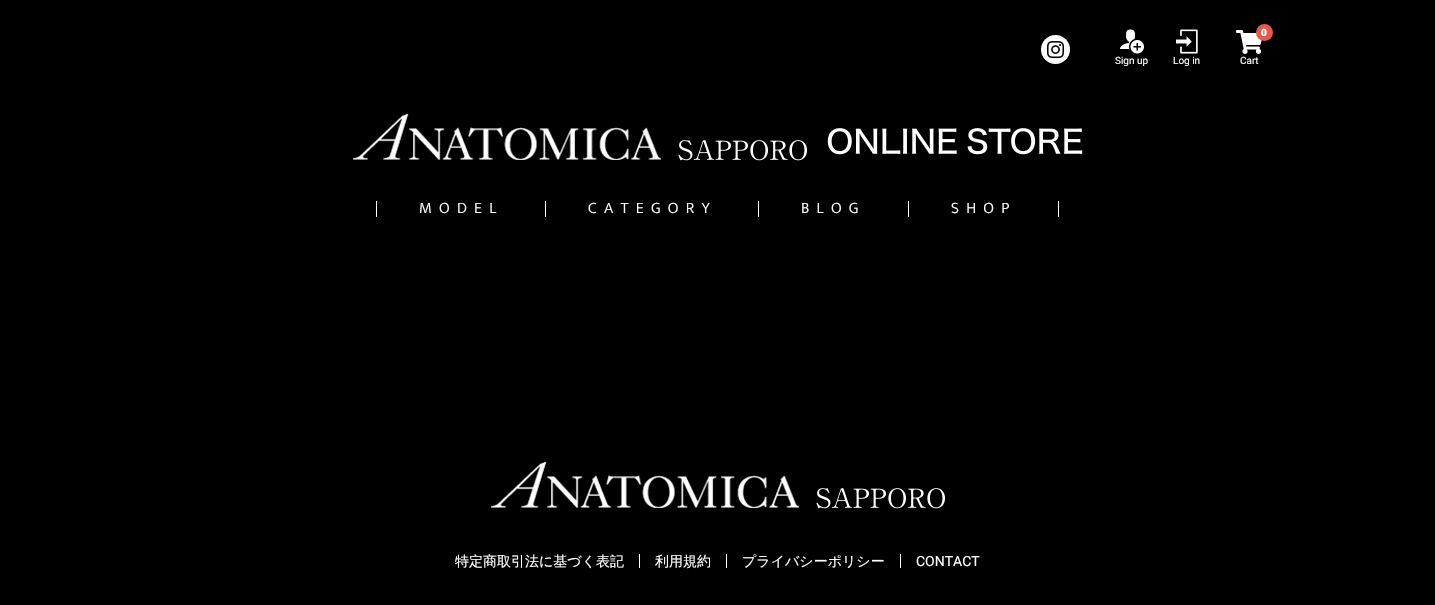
void draw(SkCanvas* canvas) {
    SkPaint paint;
    paint.setAntiAlias(true);
    auto spacedText = [&](const char* s, float x, float y, const SkFont& font, const SkPaint& ink, float letter, float word) {
        std::vector<SkGlyphID> glyphs(font.countText(s, strlen(s), SkTextEncoding::kUTF8));
        std::vector<float> xs(glyphs.size());
        font.textToGlyphs(s, strlen(s), SkTextEncoding::kUTF8, glyphs);
        font.getXPos(glyphs, xs, x);
        float extra = 0;
        for (size_t i = 0; i < glyphs.size(); i++) {
            xs[i] += extra;
            extra += letter + word * (glyphs[i] == font.unicharToGlyph(' '));
        }
        canvas->drawTextBlob(SkTextBlob::MakeFromPosHGlyphs(glyphs, xs, y, font), 0, 0, ink);
    };
    canvas->clear(0xFF000000);
    paint.setColor(0xFFFFFFFF);
    canvas->drawCircle(1055.5f, 49.5f, 14.5f, paint);
    canvas->drawImageRect(SkImages::DeferredFromEncodedData(SkData::MakeFromFileName("img1.png")), SkRect::MakeXYWH(1047, 41, 17, 18), SkSamplingOptions());
    canvas->drawImageRect(SkImages::DeferredFromEncodedData(SkData::MakeFromFileName("img2.png")), SkRect::MakeXYWH(1120, 29, 24, 25), SkSamplingOptions());
    SkFont font1(fontMgr->matchFamilyStyle("Roboto", SkFontStyle::Normal()), 10);
    font1.setSubpixel(true);
    canvas->drawString("Sign up", 1115, 64, font1, paint);
    canvas->drawImageRect(SkImages::DeferredFromEncodedData(SkData::MakeFromFileName("img3.png")), SkRect::MakeXYWH(1176, 29, 22, 25), SkSamplingOptions());
    canvas->drawString("Log in", 1173, 64, font1, paint);
    canvas->drawImageRect(SkImages::DeferredFromEncodedData(SkData::MakeFromFileName("img4.png")), SkRect::MakeXYWH(1236, 30, 26, 24), SkSamplingOptions());
    paint.setColor(0xFFDE5D50);
    canvas->drawCircle(1264.5f, 32.5f, 8.5f, paint);
    SkFont font2(fontMgr->matchFamilyStyle("Roboto", SkFontStyle(900, SkFontStyle::kNormal_Width, SkFontStyle::kUpright_Slant)), 10);
    font2.setSubpixel(true);
    paint.setColor(0xFFFFFFFF);
    canvas->drawString("0", 1261, 36, font2, paint);
    canvas->drawString("Cart", 1240, 64, font1, paint);
    canvas->drawImageRect(SkImages::DeferredFromEncodedData(SkData::MakeFromFileName("img5.png")), SkRect::MakeXYWH(353, 114, 454, 47), SkSamplingOptions());
    canvas->drawImageRect(SkImages::DeferredFromEncodedData(SkData::MakeFromFileName("img6.png")), SkRect::MakeXYWH(827, 128, 256, 27), SkSamplingOptions());
    canvas->drawRect(SkRect::MakeXYWH(545, 201, 1, 16), paint);
    canvas->drawRect(SkRect::MakeXYWH(376, 201, 1, 16), paint);
    SkFont font3(fontMgr->matchFamilyStyle("Mukta", SkFontStyle(300, SkFontStyle::kNormal_Width, SkFontStyle::kUpright_Slant)), 16);
    font3.setSubpixel(true);
    spacedText("MODEL", 419, 213, font3, paint, 7.25f, 0);
    canvas->drawRect(SkRect::MakeXYWH(758, 201, 1, 16), paint);
    spacedText("CATEGORY", 588, 213, font3, paint, 7.25f, 0);
    canvas->drawRect(SkRect::MakeXYWH(908, 201, 1, 16), paint);
    spacedText("BLOG", 801, 213, font3, paint, 7.25f, 0);
    canvas->drawRect(SkRect::MakeXYWH(1058, 201, 1, 16), paint);
    spacedText("SHOP", 951, 213, font3, paint, 7.25f, 0);
    canvas->drawImageRect(SkImages::DeferredFromEncodedData(SkData::MakeFromFileName("img5.png")), SkRect::MakeXYWH(491, 462, 454, 47), SkSamplingOptions());
    SkFont font4(fontMgr->matchFamilyStyle("WenQuanYi Zen Hei", SkFontStyle(500, SkFontStyle::kNormal_Width, SkFontStyle::kUpright_Slant)), 14);
    font4.setSubpixel(true);
    canvas->drawString("特定商取引法に基づく表記", 455, 566, font4, paint);
    canvas->drawRect(SkRect::MakeXYWH(639, 554, 1, 14), paint);
    canvas->drawString("利用規約", 655, 566, font4, paint);
    canvas->drawRect(SkRect::MakeXYWH(726, 554, 1, 14), paint);
    canvas->drawString("プライバシーポリシー", 742, 566, font4, paint);
    canvas->drawRect(SkRect::MakeXYWH(900, 554, 1, 14), paint);
    SkFont font5(fontMgr->matchFamilyStyle("Roboto", SkFontStyle::Normal()), 14);
    font5.setSubpixel(true);
    canvas->drawString("CONTACT", 916, 566, font5, paint);
}
